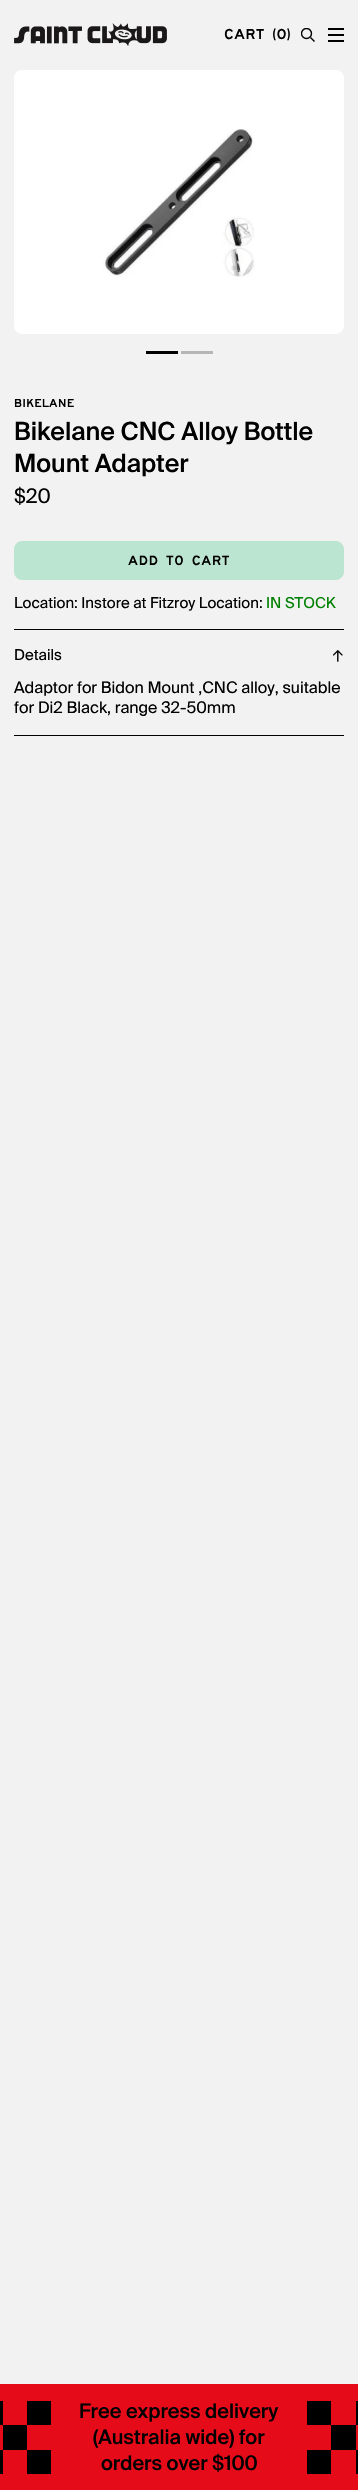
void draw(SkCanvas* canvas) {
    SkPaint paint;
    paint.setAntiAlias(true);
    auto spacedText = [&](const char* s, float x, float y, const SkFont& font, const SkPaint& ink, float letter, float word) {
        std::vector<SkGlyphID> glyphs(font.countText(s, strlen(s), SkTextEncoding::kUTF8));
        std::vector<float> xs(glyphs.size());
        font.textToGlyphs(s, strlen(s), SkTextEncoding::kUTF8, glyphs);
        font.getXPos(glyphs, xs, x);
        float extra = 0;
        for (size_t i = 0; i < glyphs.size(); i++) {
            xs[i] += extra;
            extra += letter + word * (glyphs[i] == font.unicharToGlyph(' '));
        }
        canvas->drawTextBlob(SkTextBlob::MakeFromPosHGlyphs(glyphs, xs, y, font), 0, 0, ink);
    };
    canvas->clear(0xFFF2F2F2);
    canvas->drawImageRect(SkImages::DeferredFromEncodedData(SkData::MakeFromFileName("img1.png")), SkRect::MakeXYWH(14, 23, 153, 23), SkSamplingOptions());
    SkFont font1(fontMgr->matchFamilyStyle("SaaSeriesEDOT", SkFontStyle::Normal()), 15);
    font1.setSubpixel(true);
    paint.setColor(0xFF000000);
    spacedText("Cart (0)", 224, 39, font1, paint, 0.75f, 0);
    canvas->save();
    canvas->clipRect(SkRect::MakeXYWH(301, 28, 14, 14));
    paint.setStyle(SkPaint::kStroke_Style);
    paint.setStrokeWidth(1.4f);
    canvas->drawCircle(306.5f, 33.5f, 5, paint);
    canvas->restore();
    canvas->drawPath(SkPathBuilder().moveTo(310.5f, 37.5f).lineTo(314.5f, 41.5f).detach(), paint);
    paint.setStyle(SkPaint::kFill_Style);
    canvas->drawRect(SkRect::MakeXYWH(328, 28, 16, 2), paint);
    canvas->drawRect(SkRect::MakeXYWH(328, 34, 16, 2), paint);
    canvas->drawRect(SkRect::MakeXYWH(328, 40, 16, 2), paint);
    paint.setColor(0xFFFFFFFF);
    canvas->drawRoundRect(SkRect::MakeXYWH(14, 70, 330, 264), 8, 8, paint);
    canvas->drawImageRect(SkImages::DeferredFromEncodedData(SkData::MakeFromFileName("img2.png")), SkRect::MakeXYWH(103, 129, 152, 148), SkSamplingOptions());
    paint.setColor(0xFF000000);
    canvas->drawRect(SkRect::MakeXYWH(146, 351, 32, 3), paint);
    paint.setColor(0xFFB6B6B6);
    canvas->drawRect(SkRect::MakeXYWH(181, 351, 32, 3), paint);
    SkFont font2(fontMgr->matchFamilyStyle("SaaSeriesEDOT", SkFontStyle::Normal()), 12);
    font2.setSubpixel(true);
    paint.setColor(0xFF000000);
    spacedText("BIKELANE", 14, 407, font2, paint, 0.5f, 0);
    SkFont font3(fontMgr->matchFamilyStyle("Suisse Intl", SkFontStyle(500, SkFontStyle::kNormal_Width, SkFontStyle::kUpright_Slant)), 25);
    font3.setSubpixel(true);
    canvas->drawString("Bikelane CNC Alloy Bottle", 14, 440, font3, paint);
    canvas->drawString("Mount Adapter", 14, 472, font3, paint);
    SkFont font4(fontMgr->matchFamilyStyle("Suisse Intl", SkFontStyle::Normal()), 20);
    font4.setSubpixel(true);
    canvas->drawString("$20", 14, 503, font4, paint);
    paint.setColor(0xFFBBE5D0);
    canvas->drawRoundRect(SkRect::MakeXYWH(14.5f, 541.5f, 329, 38), 7.5f, 7.5f, paint);
    paint.setStyle(SkPaint::kStroke_Style);
    paint.setStrokeWidth(1);
    canvas->drawRoundRect(SkRect::MakeXYWH(14.5f, 541.5f, 329, 38), 7.5f, 7.5f, paint);
    SkFont font5(fontMgr->matchFamilyStyle("SaaSeriesEDOT", SkFontStyle::Normal()), 14);
    font5.setSubpixel(true);
    paint.setStyle(SkPaint::kFill_Style);
    paint.setColor(0xFF000000);
    spacedText("Add to Cart", 128, 565, font5, paint, 0.75f, 0);
    SkFont font6(fontMgr->matchFamilyStyle("Suisse Intl", SkFontStyle::Normal()), 15);
    font6.setSubpixel(true);
    canvas->drawString("Location: Instore at Fitzroy Location:", 14, 608, font6, paint);
    paint.setColor(0xFF008000);
    canvas->drawString("IN STOCK", 266, 608, font6, paint);
    paint.setColor(0xFF000000);
    canvas->drawRect(SkRect::MakeXYWH(14, 629, 330, 1), paint);
    canvas->drawRect(SkRect::MakeXYWH(14, 735, 330, 1), paint);
    canvas->drawString("Details", 14, 660, font6, paint);
    canvas->drawImageRect(SkImages::DeferredFromEncodedData(SkData::MakeFromFileName("img3.png")), SkRect::MakeXYWH(333, 650, 10, 12), SkSamplingOptions());
    SkFont font7(fontMgr->matchFamilyStyle("Suisse Intl", SkFontStyle::Normal()), 16);
    font7.setSubpixel(true);
    canvas->drawString("Adaptor for Bidon Mount ,CNC alloy, suitable", 14, 693, font7, paint);
    canvas->drawString("for Di2 Black, range 32-50mm", 14, 713, font7, paint);
    paint.setColor(0xFFE50B19);
    canvas->drawRect(SkRect::MakeXYWH(0, 2384, 358, 106), paint);
    paint.setColor(0xFF000000);
    canvas->drawRect(SkRect::MakeXYWH(3, 2425, 24, 25), paint);
    canvas->drawRect(SkRect::MakeXYWH(0, 2450, 3, 24), paint);
    canvas->drawRect(SkRect::MakeXYWH(27, 2450, 24, 24), paint);
    canvas->drawRect(SkRect::MakeXYWH(0, 2401, 3, 24), paint);
    canvas->drawRect(SkRect::MakeXYWH(27, 2401, 24, 24), paint);
    SkFont font8(fontMgr->matchFamilyStyle("Suisse Intl", SkFontStyle(500, SkFontStyle::kNormal_Width, SkFontStyle::kUpright_Slant)), 20);
    font8.setSubpixel(true);
    canvas->drawString("Free express delivery", 79, 2418, font8, paint);
    canvas->drawString("(Australia wide) for", 93, 2444, font8, paint);
    canvas->drawString("orders over $100", 101, 2470, font8, paint);
    canvas->drawRect(SkRect::MakeXYWH(307, 2401, 24, 24), paint);
    canvas->drawRect(SkRect::MakeXYWH(331, 2425, 25, 25), paint);
    canvas->drawRect(SkRect::MakeXYWH(356, 2450, 2, 24), paint);
    canvas->drawRect(SkRect::MakeXYWH(307, 2450, 24, 24), paint);
    canvas->drawRect(SkRect::MakeXYWH(356, 2401, 2, 24), paint);
}
